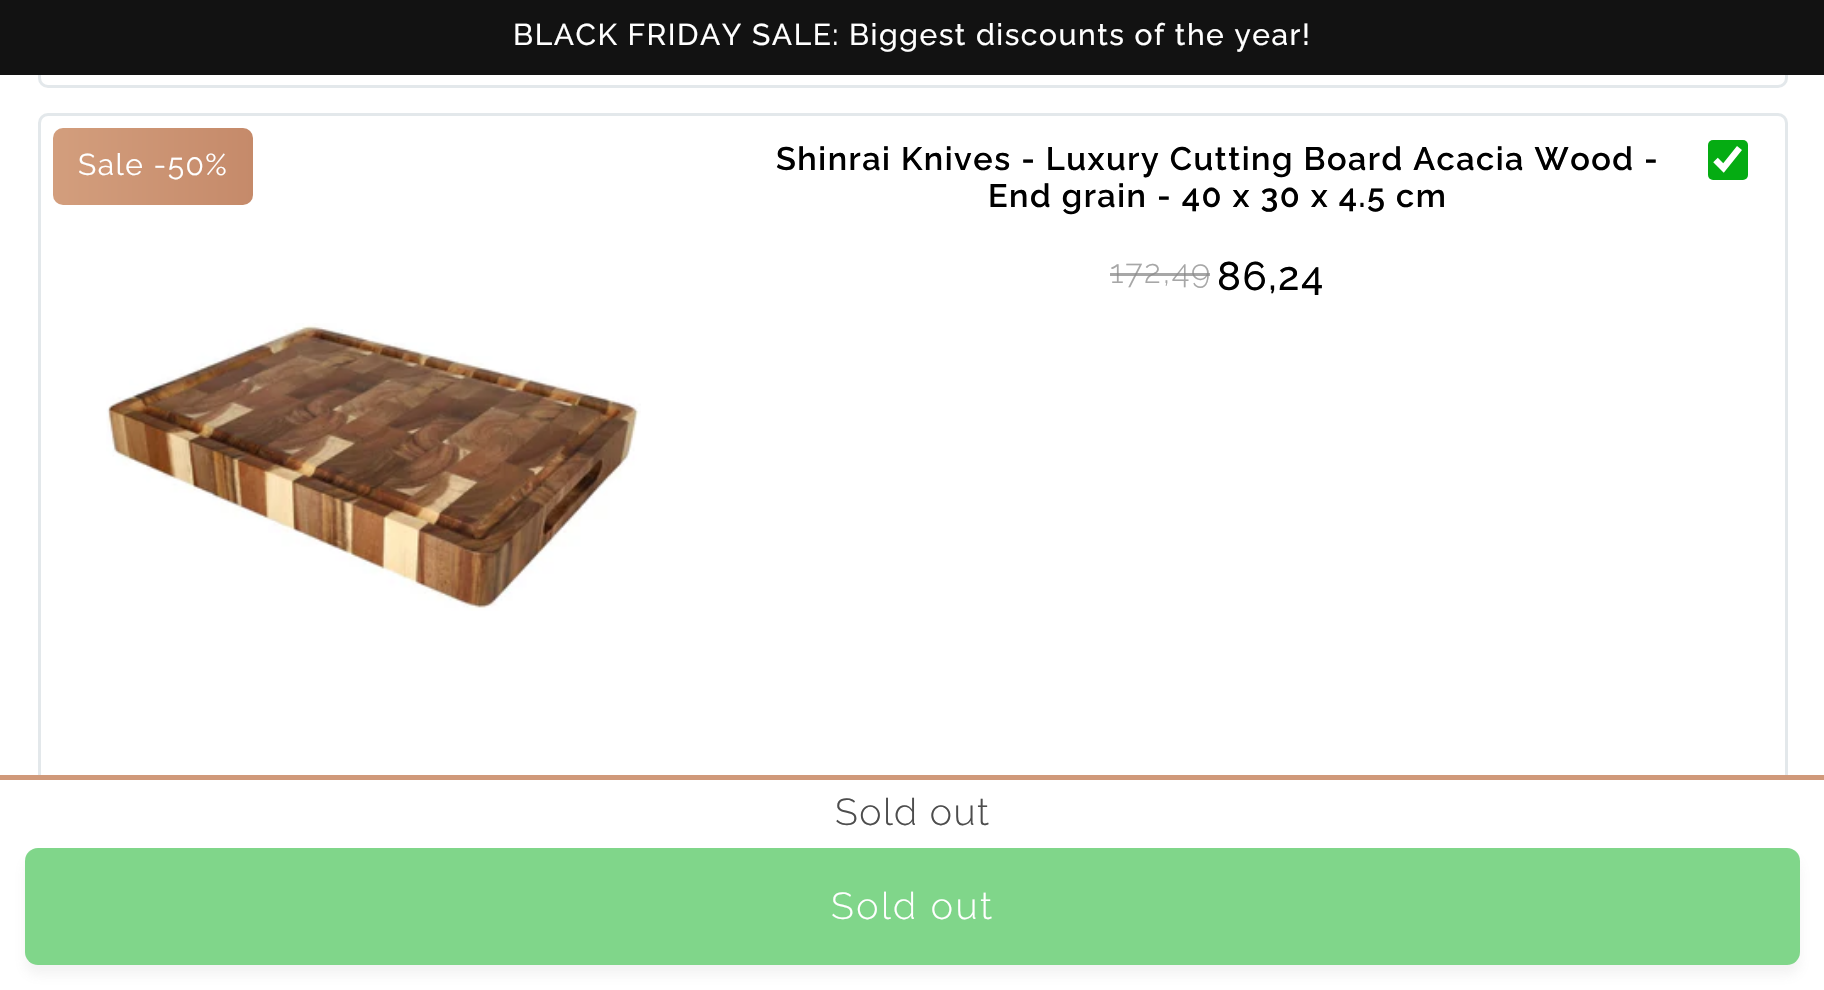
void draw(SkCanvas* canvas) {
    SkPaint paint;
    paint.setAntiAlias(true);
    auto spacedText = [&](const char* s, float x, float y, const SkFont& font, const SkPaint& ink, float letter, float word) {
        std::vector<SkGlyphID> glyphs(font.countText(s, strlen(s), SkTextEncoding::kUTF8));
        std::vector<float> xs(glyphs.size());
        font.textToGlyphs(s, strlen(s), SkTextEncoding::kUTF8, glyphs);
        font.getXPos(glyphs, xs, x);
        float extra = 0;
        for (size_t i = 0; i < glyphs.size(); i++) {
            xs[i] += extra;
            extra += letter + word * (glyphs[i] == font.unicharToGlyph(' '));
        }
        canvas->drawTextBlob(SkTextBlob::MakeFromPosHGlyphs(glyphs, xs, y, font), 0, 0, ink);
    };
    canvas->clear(0xFFFFFFFF);
    paint.setStyle(SkPaint::kStroke_Style);
    paint.setStrokeWidth(3);
    paint.setColor(0xFFE3E8EB);
    canvas->drawRoundRect(SkRect::MakeXYWH(39.5f, -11.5f, 1747, 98), 8.5f, 8.5f, paint);
    paint.setStyle(SkPaint::kFill_Style);
    paint.setColor(0xFF121212);
    canvas->drawRect(SkRect::MakeXYWH(0, 0, 1824, 75), paint);
    SkFont font1(fontMgr->matchFamilyStyle("Raleway", SkFontStyle(500, SkFontStyle::kNormal_Width, SkFontStyle::kUpright_Slant)), 30);
    font1.setSubpixel(true);
    paint.setColor(0xFFFFFFFF);
    spacedText("BLACK FRIDAY SALE: Biggest discounts of the year!", 513, 45, font1, paint, 1.5f, 0);
    paint.setStyle(SkPaint::kStroke_Style);
    paint.setColor(0xFFE3E8EB);
    canvas->drawRoundRect(SkRect::MakeXYWH(39.5f, 114.5f, 1747, 697), 8.5f, 8.5f, paint);
    paint.setStyle(SkPaint::kFill_Style);
    {
        const SkColor colors[] = {0xFFD39E7D, 0xFFC58A6A};
        const float stops[] = {0, 1};
        const SkPoint ends[] = {{53, 166}, {253, 166}};
        paint.setShader(SkGradientShader::MakeLinear(ends, colors, stops, 2, SkTileMode::kClamp));
        paint.setAlpha(255);
    }
    canvas->drawRoundRect(SkRect::MakeXYWH(53, 128, 200, 77), 10, 10, paint);
    SkFont font2(fontMgr->matchFamilyStyle("Raleway", SkFontStyle(100, SkFontStyle::kNormal_Width, SkFontStyle::kUpright_Slant)), 30);
    font2.setSubpixel(true);
    paint.setShader(nullptr);
    paint.setColor(0xFFFFFFFF);
    spacedText("Sale -50%", 78, 175, font2, paint, 1.5f, 0);
    SkFont font3(fontMgr->matchFamilyStyle("Raleway", SkFontStyle(600, SkFontStyle::kNormal_Width, SkFontStyle::kUpright_Slant)), 32.5f);
    font3.setSubpixel(true);
    paint.setColor(0xFF000000);
    spacedText("Shinrai Knives - Luxury Cutting Board Acacia Wood -", 776, 170, font3, paint, 1.5f, 0);
    spacedText("End grain - 40 x 30 x 4.5 cm", 988, 207, font3, paint, 1.5f, 0);
    SkFont font4(fontMgr->matchFamilyStyle("Raleway", SkFontStyle(300, SkFontStyle::kNormal_Width, SkFontStyle::kUpright_Slant)), 33);
    font4.setSubpixel(true);
    paint.setColor(0xFFA7A7A7);
    spacedText("172,49", 1110, 283, font4, paint, 1.5f, 0);
    paint.setColor(0xBF898989);
    canvas->drawRect(SkRect::MakeXYWH(1110, 273, 100, 3), paint);
    SkFont font5(fontMgr->matchFamilyStyle("Raleway", SkFontStyle(500, SkFontStyle::kNormal_Width, SkFontStyle::kUpright_Slant)), 40);
    font5.setSubpixel(true);
    paint.setColor(0xFF000000);
    spacedText("86,24", 1217, 290, font5, paint, 1.5f, 0);
    paint.setColor(0xFF05AC12);
    canvas->drawRoundRect(SkRect::MakeXYWH(1708, 140, 40, 40), 5, 5, paint);
    paint.setStyle(SkPaint::kStroke_Style);
    paint.setStrokeWidth(6.4f);
    paint.setColor(0xFFFFFFFF);
    canvas->drawPath(SkPathBuilder().moveTo(1715.5f, 160).lineTo(1723.5f, 168).lineTo(1739.5f, 148).detach(), paint);
    canvas->drawImageRect(SkImages::DeferredFromEncodedData(SkData::MakeFromFileName("img1.png")), SkRect::MakeXYWH(106, 323, 535, 288), SkSamplingOptions());
    paint.setStyle(SkPaint::kFill_Style);
    canvas->drawRect(SkRect::MakeXYWH(38, 780, 1750, 33), paint);
    paint.setColor(0xFFD0997A);
    canvas->drawRect(SkRect::MakeXYWH(0, 775, 1824, 5), paint);
    SkFont font6(fontMgr->matchFamilyStyle("Raleway", SkFontStyle(300, SkFontStyle::kNormal_Width, SkFontStyle::kUpright_Slant)), 37.5f);
    font6.setSubpixel(true);
    paint.setColor(0xFF4D4D4D);
    spacedText("Sold out", 835, 825, font6, paint, 1.5f, 0);
    paint.setColor(0xFF80D68A);
    canvas->drawRoundRect(SkRect::MakeXYWH(25, 848, 1775, 117), 13, 13, paint);
    canvas->save();
    canvas->clipPath(SkPathBuilder(SkPathFillType::kEvenOdd).moveTo(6, 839).lineTo(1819, 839).lineTo(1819, 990).lineTo(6, 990).close().moveTo(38, 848).lineTo(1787, 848).cubicTo(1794, 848, 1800, 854, 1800, 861).lineTo(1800, 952).cubicTo(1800, 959, 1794, 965, 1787, 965).lineTo(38, 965).cubicTo(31, 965, 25, 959, 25, 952).lineTo(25, 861).cubicTo(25, 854, 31, 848, 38, 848).close().detach(), true);
    paint.setColor(0x1A898989);
    paint.setMaskFilter(SkMaskFilter::MakeBlur(kNormal_SkBlurStyle, 6));
    canvas->drawRoundRect(SkRect::MakeXYWH(25, 858, 1775, 117), 13, 13, paint);
    paint.setMaskFilter(nullptr);
    canvas->restore();
    paint.setColor(0xFFFFFFFF);
    spacedText("Sold out", 831, 919, font6, paint, 2.5f, 0);
}
